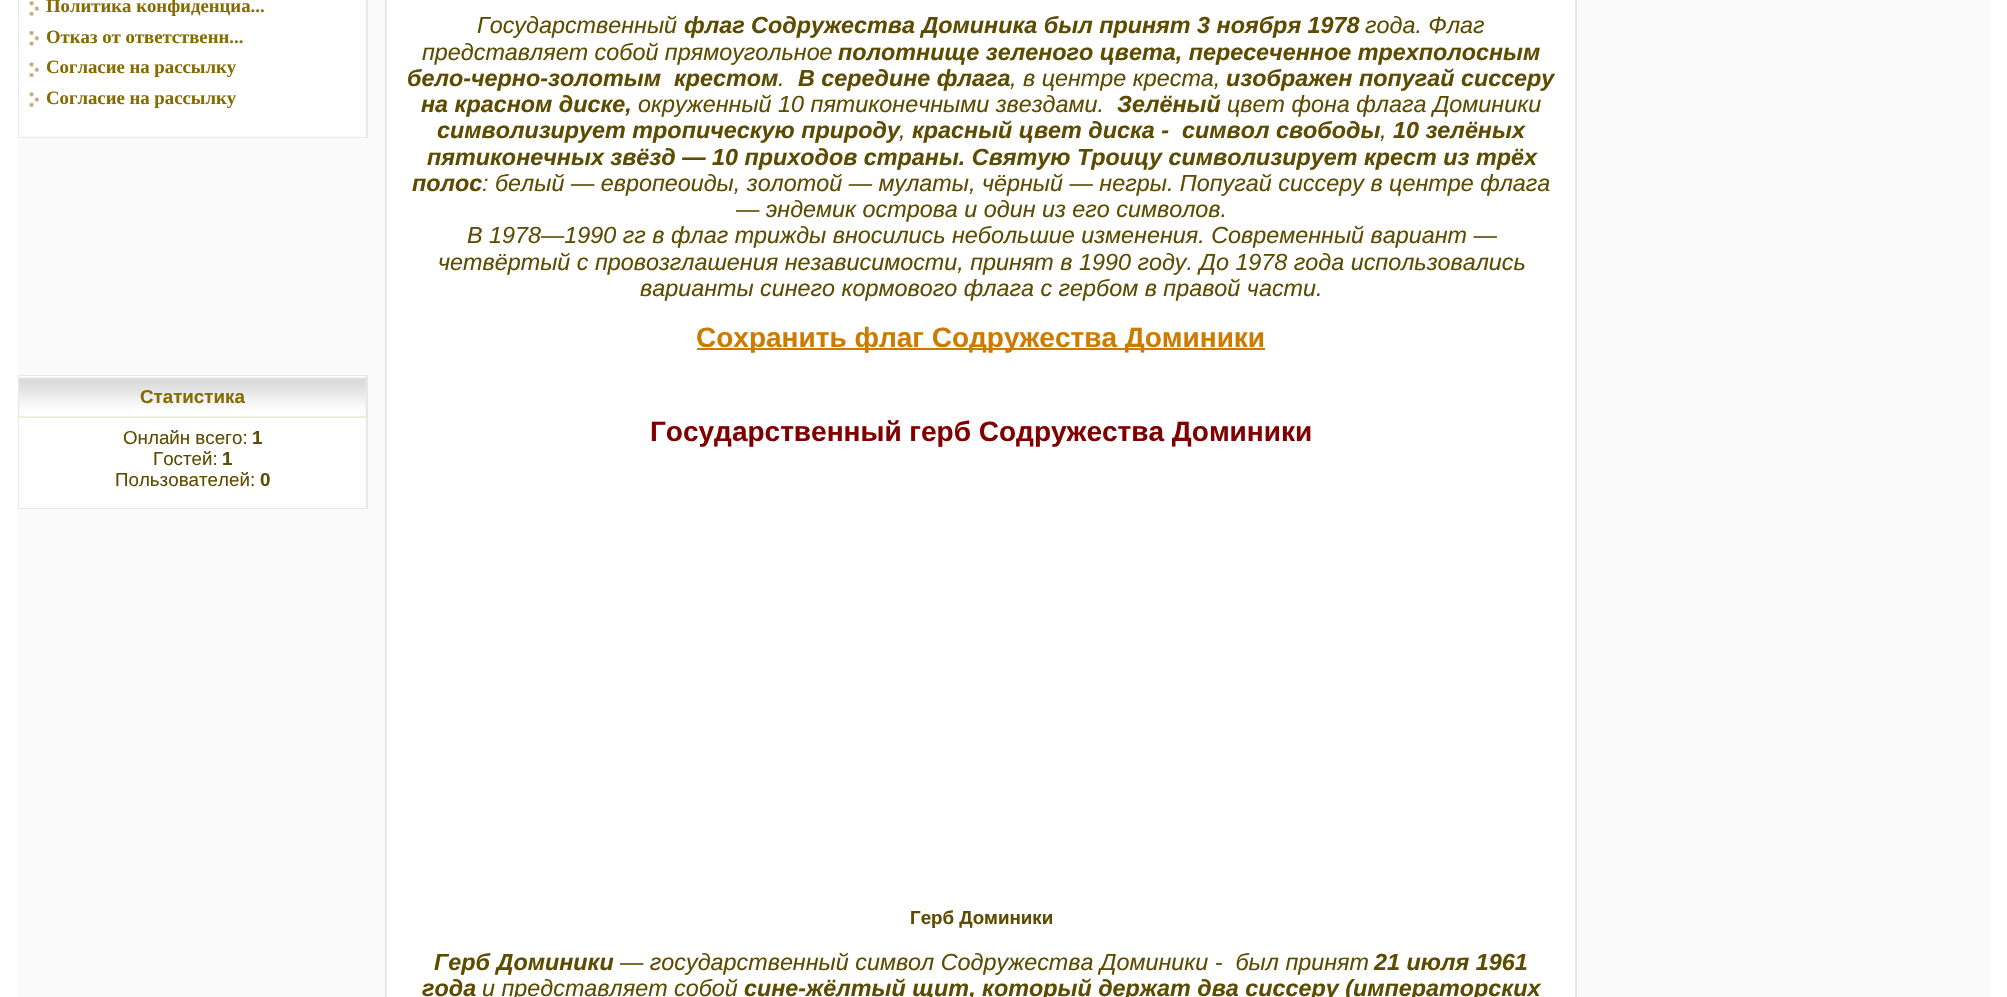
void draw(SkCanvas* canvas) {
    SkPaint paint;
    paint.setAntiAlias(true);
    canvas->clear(0xFFFFFFFF);
    paint.setColor(0xFFFAFAFA);
    canvas->drawRect(SkRect::MakeXYWH(18, 0, 1972, 997), paint);
    paint.setColor(0xFFE8E8E8);
    canvas->drawRect(SkRect::MakeXYWH(18, 0, 350, 138), paint);
    paint.setColor(0xFFFFFFFF);
    canvas->drawRect(SkRect::MakeXYWH(19, 0, 347, 137), paint);
    canvas->drawImageRect(SkImages::DeferredFromEncodedData(SkData::MakeFromFileName("img1.png")), SkRect::MakeXYWH(29, 1, 10, 15), SkSamplingOptions());
    SkFont font1(fontMgr->matchFamilyStyle("Liberation Serif", SkFontStyle::Bold()), 18.75f);
    font1.setSubpixel(true);
    paint.setColor(0xFF856B00);
    canvas->drawString("Политика конфиденциа...", 46, 12, font1, paint);
    canvas->drawImageRect(SkImages::DeferredFromEncodedData(SkData::MakeFromFileName("img2.png")), SkRect::MakeXYWH(29, 31, 10, 15), SkSamplingOptions());
    canvas->drawString("Отказ от ответственн...", 46, 43, font1, paint);
    canvas->drawImageRect(SkImages::DeferredFromEncodedData(SkData::MakeFromFileName("img3.png")), SkRect::MakeXYWH(29, 62, 10, 15), SkSamplingOptions());
    canvas->drawString("Согласие на рассылку", 46, 73, font1, paint);
    canvas->drawImageRect(SkImages::DeferredFromEncodedData(SkData::MakeFromFileName("img1.png")), SkRect::MakeXYWH(29, 92, 10, 15), SkSamplingOptions());
    canvas->drawString("Согласие на рассылку", 46, 104, font1, paint);
    paint.setColor(0xFFE8E8E8);
    canvas->drawRect(SkRect::MakeXYWH(18, 375, 350, 134), paint);
    paint.setColor(0xFFF3ECCD);
    canvas->drawRect(SkRect::MakeXYWH(19, 376, 347, 41), paint);
    canvas->drawImageRect(SkImages::DeferredFromEncodedData(SkData::MakeFromFileName("img4.png")), SkRect::MakeXYWH(19, 376, 347, 41), SkSamplingOptions());
    SkFont font2(fontMgr->matchFamilyStyle("Liberation Sans", SkFontStyle::Bold()), 18.75f);
    font2.setSubpixel(true);
    paint.setColor(0xFF856B00);
    canvas->drawString("Статистика", 140, 403, font2, paint);
    paint.setColor(0xFFFFFFFF);
    canvas->drawRect(SkRect::MakeXYWH(19, 418, 347, 90), paint);
    SkFont font3(fontMgr->matchFamilyStyle("Liberation Sans", SkFontStyle::Normal()), 18.75f);
    font3.setSubpixel(true);
    paint.setColor(0xFF5D4B00);
    canvas->drawString("Онлайн всего:", 123, 444, font3, paint);
    canvas->drawString("1", 252, 444, font2, paint);
    canvas->drawString("Гостей:", 153, 465, font3, paint);
    canvas->drawString("1", 222, 465, font2, paint);
    canvas->drawString("Пользователей:", 115, 486, font3, paint);
    canvas->drawString("0", 260, 486, font2, paint);
    paint.setStyle(SkPaint::kStroke_Style);
    paint.setStrokeWidth(2);
    paint.setColor(0xFFE8E8E8);
    canvas->drawRect(SkRect::MakeXYWH(386, -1, 1190, 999), paint);
    paint.setStyle(SkPaint::kFill_Style);
    paint.setColor(0xFFFFFFFF);
    canvas->drawRect(SkRect::MakeXYWH(387, 0, 1188, 997), paint);
    SkFont font4(fontMgr->matchFamilyStyle("Liberation Sans", SkFontStyle::Italic()), 23.35f);
    font4.setSubpixel(true);
    paint.setColor(0xFF5D4B00);
    canvas->drawString("Государственный", 477, 33, font4, paint);
    SkFont font5(fontMgr->matchFamilyStyle("Liberation Sans", SkFontStyle::BoldItalic()), 23.35f);
    font5.setSubpixel(true);
    canvas->drawString("флаг Содружества Доминика был принят 3 ноября 1978", 684, 33, font5, paint);
    canvas->drawString("года. Флаг", 1365, 33, font4, paint);
    canvas->drawString("представляет собой прямоугольное", 422, 60, font4, paint);
    canvas->drawString("полотнище зеленого цвета, пересеченное трехполосным", 838, 60, font5, paint);
    canvas->drawString("бело-черно-золотым  крестом", 407, 86, font5, paint);
    canvas->drawString(".", 778, 86, font4, paint);
    canvas->drawString("В середине флага", 798, 86, font5, paint);
    canvas->drawString(", в центре креста,", 1010, 86, font4, paint);
    canvas->drawString("изображен попугай сиссеру", 1226, 86, font5, paint);
    canvas->drawString("на красном диске,", 421, 112, font5, paint);
    canvas->drawString("окруженный 10 пятиконечными звездами.", 638, 112, font4, paint);
    canvas->drawString("Зелёный", 1117, 112, font5, paint);
    canvas->drawString("цвет фона флага Доминики", 1227, 112, font4, paint);
    canvas->drawString("символизирует тропическую природу", 437, 138, font5, paint);
    canvas->drawString(",", 899, 138, font4, paint);
    canvas->drawString("красный цвет диска -  символ свободы", 912, 138, font5, paint);
    canvas->drawString(",", 1380, 138, font4, paint);
    canvas->drawString("10 зелёных", 1393, 138, font5, paint);
    canvas->drawString("пятиконечных звёзд — 10 приходов страны. Святую Троицу символизирует крест из трёх", 427, 165, font5, paint);
    canvas->drawString("полос", 412, 191, font5, paint);
    canvas->drawString(": белый — европеоиды, золотой — мулаты, чёрный — негры. Попугай сиссеру в центре флага", 482, 191, font4, paint);
    canvas->drawString("— эндемик острова и один из его символов.", 736, 217, font4, paint);
    canvas->drawString("В 1978—1990 гг в флаг трижды вносились небольшие изменения. Современный вариант —", 467, 243, font4, paint);
    canvas->drawString("четвёртый с провозглашения независимости, принят в 1990 году. До 1978 года использовались", 438, 270, font4, paint);
    canvas->drawString("варианты синего кормового флага с гербом в правой части.", 640, 296, font4, paint);
    paint.setColor(0xFFCC7B00);
    canvas->drawRect(SkRect::MakeXYWH(697, 348, 568, 2), paint);
    SkFont font6(fontMgr->matchFamilyStyle("Liberation Sans", SkFontStyle::Bold()), 28);
    font6.setSubpixel(true);
    canvas->drawString("Сохранить флаг Содружества Доминики", 696, 347, font6, paint);
    paint.setColor(0xFF800000);
    canvas->drawString("Государственный герб Содружества Доминики", 650, 441, font6, paint);
    paint.setColor(0xFF5D4B00);
    canvas->drawString("Герб Доминики", 910, 924, font2, paint);
    canvas->drawString("Герб Доминики", 434, 970, font5, paint);
    canvas->drawString("— государственный символ Содружества Доминики -  был принят", 620, 970, font4, paint);
    canvas->drawString("21 июля 1961", 1374, 970, font5, paint);
    canvas->drawString("года", 422, 996, font5, paint);
    canvas->drawString("и представляет собой", 482, 996, font4, paint);
    canvas->drawString("сине-жёлтый щит, который держат два сиссеру (императорских", 744, 996, font5, paint);
}
